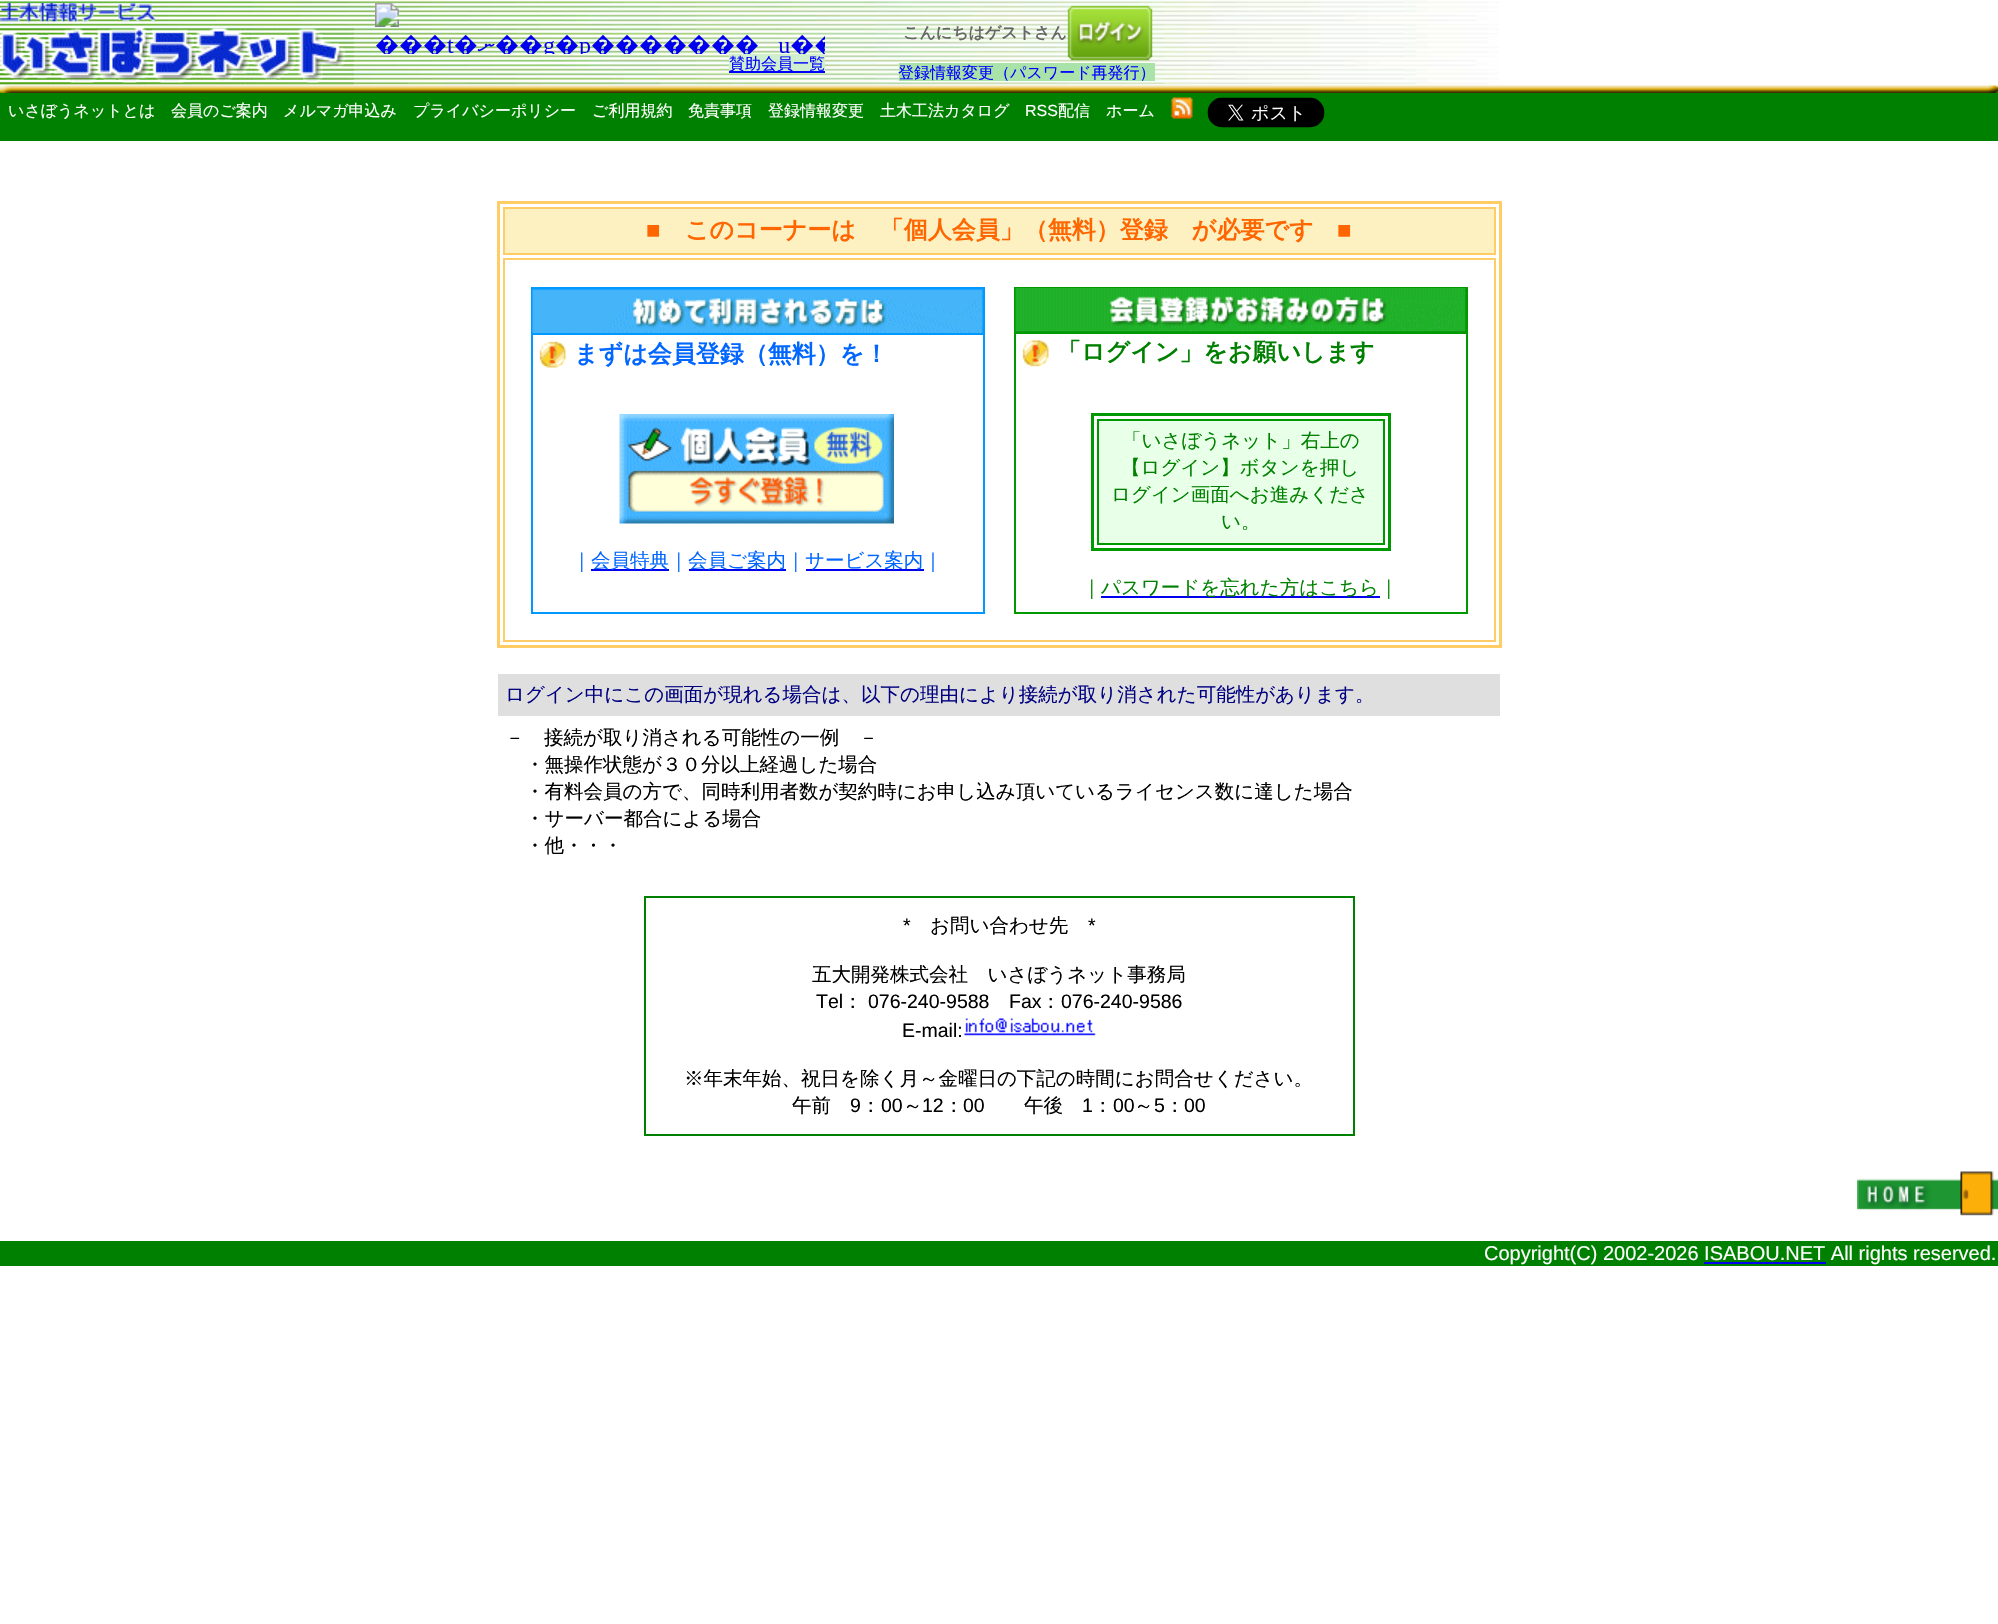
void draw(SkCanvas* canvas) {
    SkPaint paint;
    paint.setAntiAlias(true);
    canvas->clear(0xFFFFFFFF);
    canvas->drawImageRect(SkImages::DeferredFromEncodedData(SkData::MakeFromFileName("img1.png")), SkRect::MakeXYWH(0, 0, 1499, 86), SkSamplingOptions());
    canvas->drawImageRect(SkImages::DeferredFromEncodedData(SkData::MakeFromFileName("img2.png")), SkRect::MakeXYWH(0, 3, 155, 20), SkSamplingOptions());
    canvas->drawImageRect(SkImages::DeferredFromEncodedData(SkData::MakeFromFileName("img3.png")), SkRect::MakeXYWH(0, 27, 354, 58), SkSamplingOptions());
    canvas->drawImageRect(SkImages::DeferredFromEncodedData(SkData::MakeFromFileName("img4.png")), SkRect::MakeXYWH(375, 3, 450, 51), SkSamplingOptions());
    paint.setColor(0xFFCFEFCF);
    canvas->drawRect(SkRect::MakeXYWH(729, 54, 96, 17), paint);
    paint.setColor(0xFF0000FF);
    canvas->drawRect(SkRect::MakeXYWH(729, 71, 96, 2), paint);
    SkFont font1(fontMgr->matchFamilyStyle("WenQuanYi Zen Hei", SkFontStyle(500, SkFontStyle::kNormal_Width, SkFontStyle::kUpright_Slant)), 16);
    font1.setSubpixel(true);
    canvas->drawString("賛助会員一覧", 729, 69, font1, paint);
    SkFont font2(fontMgr->matchFamilyStyle("WenQuanYi Zen Hei", SkFontStyle::Bold()), 16);
    font2.setSubpixel(true);
    paint.setColor(0xFF666666);
    canvas->drawString("こんにちはゲストさん", 903, 38, font2, paint);
    canvas->drawImageRect(SkImages::DeferredFromEncodedData(SkData::MakeFromFileName("img5.png")), SkRect::MakeXYWH(1067, 5, 86, 56), SkSamplingOptions());
    paint.setColor(0xFFAAE3AA);
    canvas->drawRect(SkRect::MakeXYWH(899, 63, 256, 18), paint);
    paint.setColor(0xFF0000FF);
    canvas->drawString("登録情報変更（パスワード再発行）", 898, 78, font1, paint);
    canvas->drawImageRect(SkImages::DeferredFromEncodedData(SkData::MakeFromFileName("img6.png")), SkRect::MakeXYWH(0, 85, 1998, 8), SkSamplingOptions());
    paint.setColor(0xFF008000);
    canvas->drawRect(SkRect::MakeXYWH(0, 93, 1998, 48), paint);
    paint.setColor(0xFFFFFFFF);
    canvas->drawString("いさぼうネットとは", 8, 116, font1, paint);
    canvas->drawString("会員のご案内", 171, 116, font1, paint);
    canvas->drawString("メルマガ申込み", 283, 116, font1, paint);
    canvas->drawString("プライバシーポリシー", 413, 116, font1, paint);
    canvas->drawString("ご利用規約", 592, 116, font1, paint);
    canvas->drawString("免責事項", 688, 116, font1, paint);
    canvas->drawString("登録情報変更", 768, 116, font1, paint);
    canvas->drawString("土木工法カタログ", 880, 116, font1, paint);
    SkFont font3(fontMgr->matchFamilyStyle("Liberation Sans", SkFontStyle::Normal()), 16);
    font3.setSubpixel(true);
    canvas->drawString("RSS", 1025, 116, font3, paint);
    canvas->drawString("配信", 1058, 116, font1, paint);
    canvas->drawString("ホーム", 1106, 116, font1, paint);
    canvas->drawImageRect(SkImages::DeferredFromEncodedData(SkData::MakeFromFileName("img7.png")), SkRect::MakeXYWH(1171, 97, 22, 22), SkSamplingOptions());
    canvas->drawImageRect(SkImages::DeferredFromEncodedData(SkData::MakeFromFileName("img8.png")), SkRect::MakeXYWH(1207, 97, 118, 31), SkSamplingOptions());
    paint.setStyle(SkPaint::kStroke_Style);
    paint.setStrokeWidth(3);
    paint.setColor(0xFFFFCC66);
    canvas->drawRect(SkRect::MakeXYWH(498.5f, 202.5f, 1002, 444), paint);
    paint.setStyle(SkPaint::kFill_Style);
    paint.setColor(0xFFFDF1C1);
    canvas->drawRect(SkRect::MakeXYWH(504, 208, 991, 46), paint);
    paint.setStyle(SkPaint::kStroke_Style);
    paint.setStrokeWidth(2);
    paint.setColor(0xFFFFCC66);
    canvas->drawRect(SkRect::MakeXYWH(504, 208, 991, 46), paint);
    SkFont font4(fontMgr->matchFamilyStyle("Liberation Sans", SkFontStyle::Bold()), 24);
    font4.setSubpixel(true);
    paint.setStyle(SkPaint::kFill_Style);
    paint.setColor(0xFFFF6600);
    canvas->drawString("■", 646, 238, font4, paint);
    SkFont font5(fontMgr->matchFamilyStyle("WenQuanYi Zen Hei", SkFontStyle::Bold()), 24);
    font5.setSubpixel(true);
    canvas->drawString("このコーナーは　「個人会員」（無料）登録　が必要です", 685, 238, font5, paint);
    canvas->drawString("■", 1337, 238, font4, paint);
    paint.setStyle(SkPaint::kStroke_Style);
    paint.setColor(0xFFFFCC66);
    canvas->drawRect(SkRect::MakeXYWH(504, 259, 991, 382), paint);
    paint.setStyle(SkPaint::kFill_Style);
    paint.setColor(0xFF0099FF);
    canvas->drawRect(SkRect::MakeXYWH(531, 287, 453, 2), paint);
    canvas->drawRect(SkRect::MakeXYWH(983, 287, 2, 327), paint);
    canvas->drawRect(SkRect::MakeXYWH(531, 612, 453, 2), paint);
    canvas->drawRect(SkRect::MakeXYWH(531, 287, 2, 327), paint);
    canvas->drawRect(SkRect::MakeXYWH(533, 289, 450, 46), paint);
    canvas->drawImageRect(SkImages::DeferredFromEncodedData(SkData::MakeFromFileName("img9.png")), SkRect::MakeXYWH(532, 289, 451, 44), SkSamplingOptions());
    canvas->drawImageRect(SkImages::DeferredFromEncodedData(SkData::MakeFromFileName("img10.png")), SkRect::MakeXYWH(539, 341, 27, 27), SkSamplingOptions());
    paint.setColor(0xFF0066FF);
    canvas->drawString("まずは会員登録（無料）を！", 574, 362, font5, paint);
    canvas->drawImageRect(SkImages::DeferredFromEncodedData(SkData::MakeFromFileName("img11.png")), SkRect::MakeXYWH(619, 414, 275, 110), SkSamplingOptions());
    SkFont font6(fontMgr->matchFamilyStyle("WenQuanYi Zen Hei", SkFontStyle(500, SkFontStyle::kNormal_Width, SkFontStyle::kUpright_Slant)), 19.5f);
    font6.setSubpixel(true);
    canvas->drawString("｜", 572, 567, font6, paint);
    paint.setColor(0xFF0000EE);
    canvas->drawRect(SkRect::MakeXYWH(591, 569, 78, 2), paint);
    paint.setColor(0xFF0066FF);
    canvas->drawString("会員特典｜", 591, 567, font6, paint);
    paint.setColor(0xFF0000EE);
    canvas->drawRect(SkRect::MakeXYWH(689, 569, 97, 2), paint);
    paint.setColor(0xFF0066FF);
    canvas->drawString("会員ご案内｜", 688, 567, font6, paint);
    paint.setColor(0xFF0000EE);
    canvas->drawRect(SkRect::MakeXYWH(806, 569, 118, 2), paint);
    paint.setColor(0xFF0066FF);
    canvas->drawString("サービス案内｜", 805, 567, font6, paint);
    paint.setColor(0xFF009900);
    canvas->drawRect(SkRect::MakeXYWH(1014, 287, 453, 2), paint);
    canvas->drawRect(SkRect::MakeXYWH(1466, 287, 2, 327), paint);
    canvas->drawRect(SkRect::MakeXYWH(1014, 612, 453, 2), paint);
    canvas->drawRect(SkRect::MakeXYWH(1014, 287, 2, 327), paint);
    paint.setColor(0xFF008000);
    canvas->drawRect(SkRect::MakeXYWH(1016, 289, 450, 43), paint);
    canvas->drawImageRect(SkImages::DeferredFromEncodedData(SkData::MakeFromFileName("img12.png")), SkRect::MakeXYWH(1015, 288, 451, 44), SkSamplingOptions());
    paint.setColor(0xFF009900);
    canvas->drawRect(SkRect::MakeXYWH(1014, 332, 453, 2), paint);
    canvas->drawImageRect(SkImages::DeferredFromEncodedData(SkData::MakeFromFileName("img13.png")), SkRect::MakeXYWH(1022, 340, 27, 27), SkSamplingOptions());
    paint.setColor(0xFF008000);
    canvas->drawString("「ログイン」をお願いします", 1057, 360, font5, paint);
    paint.setStyle(SkPaint::kStroke_Style);
    paint.setStrokeWidth(3);
    paint.setColor(0xFF009900);
    canvas->drawRect(SkRect::MakeXYWH(1092.5f, 414.5f, 297, 135), paint);
    paint.setStyle(SkPaint::kFill_Style);
    paint.setColor(0xFFE8FFE8);
    canvas->drawRect(SkRect::MakeXYWH(1098, 420, 286, 124), paint);
    paint.setStyle(SkPaint::kStroke_Style);
    paint.setStrokeWidth(2);
    paint.setColor(0xFF009900);
    canvas->drawRect(SkRect::MakeXYWH(1098, 420, 286, 124), paint);
    paint.setStyle(SkPaint::kFill_Style);
    paint.setColor(0xFF008000);
    canvas->drawString("「いさぼうネット」右上の", 1122, 447, font6, paint);
    canvas->drawString("【ログイン】ボタンを押し", 1121, 474, font6, paint);
    canvas->drawString("ログイン画面へお進みくださ", 1111, 501, font6, paint);
    canvas->drawString("い。", 1221, 528, font6, paint);
    canvas->drawString("｜", 1082, 594, font6, paint);
    paint.setColor(0xFF0000EE);
    canvas->drawRect(SkRect::MakeXYWH(1101, 596, 279, 2), paint);
    paint.setColor(0xFF008000);
    canvas->drawString("パスワードを忘れた方はこちら｜", 1101, 594, font6, paint);
    paint.setColor(0xFFDFDFDF);
    canvas->drawRect(SkRect::MakeXYWH(498, 674, 1002, 42), paint);
    paint.setColor(0xFF000080);
    canvas->drawString("ログイン中にこの画面が現れる場合は、以下の理由により接続が取り消された可能性があります。", 505, 701, font6, paint);
    paint.setColor(0xFF000000);
    canvas->drawString("－　接続が取り消される可能性の一例　－", 505, 744, font6, paint);
    canvas->drawString("・無操作状態が３０分以上経過した場合", 525, 771, font6, paint);
    canvas->drawString("・有料会員の方で、同時利用者数が契約時にお申し込み頂いているライセンス数に達した場合", 525, 798, font6, paint);
    canvas->drawString("・サーバー都合による場合", 525, 825, font6, paint);
    canvas->drawString("・他・・・", 525, 852, font6, paint);
    paint.setColor(0xFF008000);
    canvas->drawRect(SkRect::MakeXYWH(644, 896, 711, 2), paint);
    canvas->drawRect(SkRect::MakeXYWH(1353, 896, 2, 240), paint);
    canvas->drawRect(SkRect::MakeXYWH(644, 1134, 711, 2), paint);
    canvas->drawRect(SkRect::MakeXYWH(644, 896, 2, 240), paint);
    SkFont font7(fontMgr->matchFamilyStyle("Liberation Sans", SkFontStyle::Normal()), 19.5f);
    font7.setSubpixel(true);
    paint.setColor(0xFF000000);
    canvas->drawString("*", 903, 932, font7, paint);
    canvas->drawString("お問い合わせ先", 930, 932, font6, paint);
    canvas->drawString("*", 1088, 932, font7, paint);
    canvas->drawString("五大開発株式会社　いさぼうネット事務局", 812, 981, font6, paint);
    canvas->drawString("Tel", 816, 1008, font7, paint);
    canvas->drawString("：", 843, 1008, font6, paint);
    canvas->drawString("076-240-9588", 868, 1008, font7, paint);
    canvas->drawString("Fax", 1009, 1008, font7, paint);
    canvas->drawString("：", 1041, 1008, font6, paint);
    canvas->drawString("076-240-9586", 1061, 1008, font7, paint);
    canvas->drawString("E-mail:", 902, 1037, font7, paint);
    canvas->drawImageRect(SkImages::DeferredFromEncodedData(SkData::MakeFromFileName("img14.png")), SkRect::MakeXYWH(964, 1018, 132, 18), SkSamplingOptions());
    canvas->drawString("※年末年始、祝日を除く月～金曜日の下記の時間にお問合せください。", 684, 1085, font6, paint);
    canvas->drawString("午前", 792, 1112, font6, paint);
    canvas->drawString("9", 850, 1112, font7, paint);
    canvas->drawString("：", 861, 1112, font6, paint);
    canvas->drawString("00", 881, 1112, font7, paint);
    canvas->drawString("～", 903, 1112, font6, paint);
    canvas->drawString("12", 922, 1112, font7, paint);
    canvas->drawString("：", 944, 1112, font6, paint);
    canvas->drawString("00", 963, 1112, font7, paint);
    canvas->drawString("午後", 1024, 1112, font6, paint);
    canvas->drawString("1", 1082, 1112, font7, paint);
    canvas->drawString("：", 1093, 1112, font6, paint);
    canvas->drawString("00", 1113, 1112, font7, paint);
    canvas->drawString("～", 1134, 1112, font6, paint);
    canvas->drawString("5", 1154, 1112, font7, paint);
    canvas->drawString("：", 1165, 1112, font6, paint);
    canvas->drawString("00", 1184, 1112, font7, paint);
    canvas->drawImageRect(SkImages::DeferredFromEncodedData(SkData::MakeFromFileName("img15.png")), SkRect::MakeXYWH(1857, 1171, 141, 45), SkSamplingOptions());
    paint.setColor(0xFF008000);
    canvas->drawRect(SkRect::MakeXYWH(0, 1241, 1998, 25), paint);
    SkFont font8(fontMgr->matchFamilyStyle("Liberation Sans", SkFontStyle::Normal()), 20);
    font8.setSubpixel(true);
    paint.setColor(0xFFFFFFFF);
    canvas->drawString("Copyright(C) 2002-2026 ISABOU.NET All rights reserved.", 1484, 1260, font8, paint);
    paint.setColor(0xFF0000EE);
    canvas->drawRect(SkRect::MakeXYWH(1704, 1262, 122, 2), paint);
}
